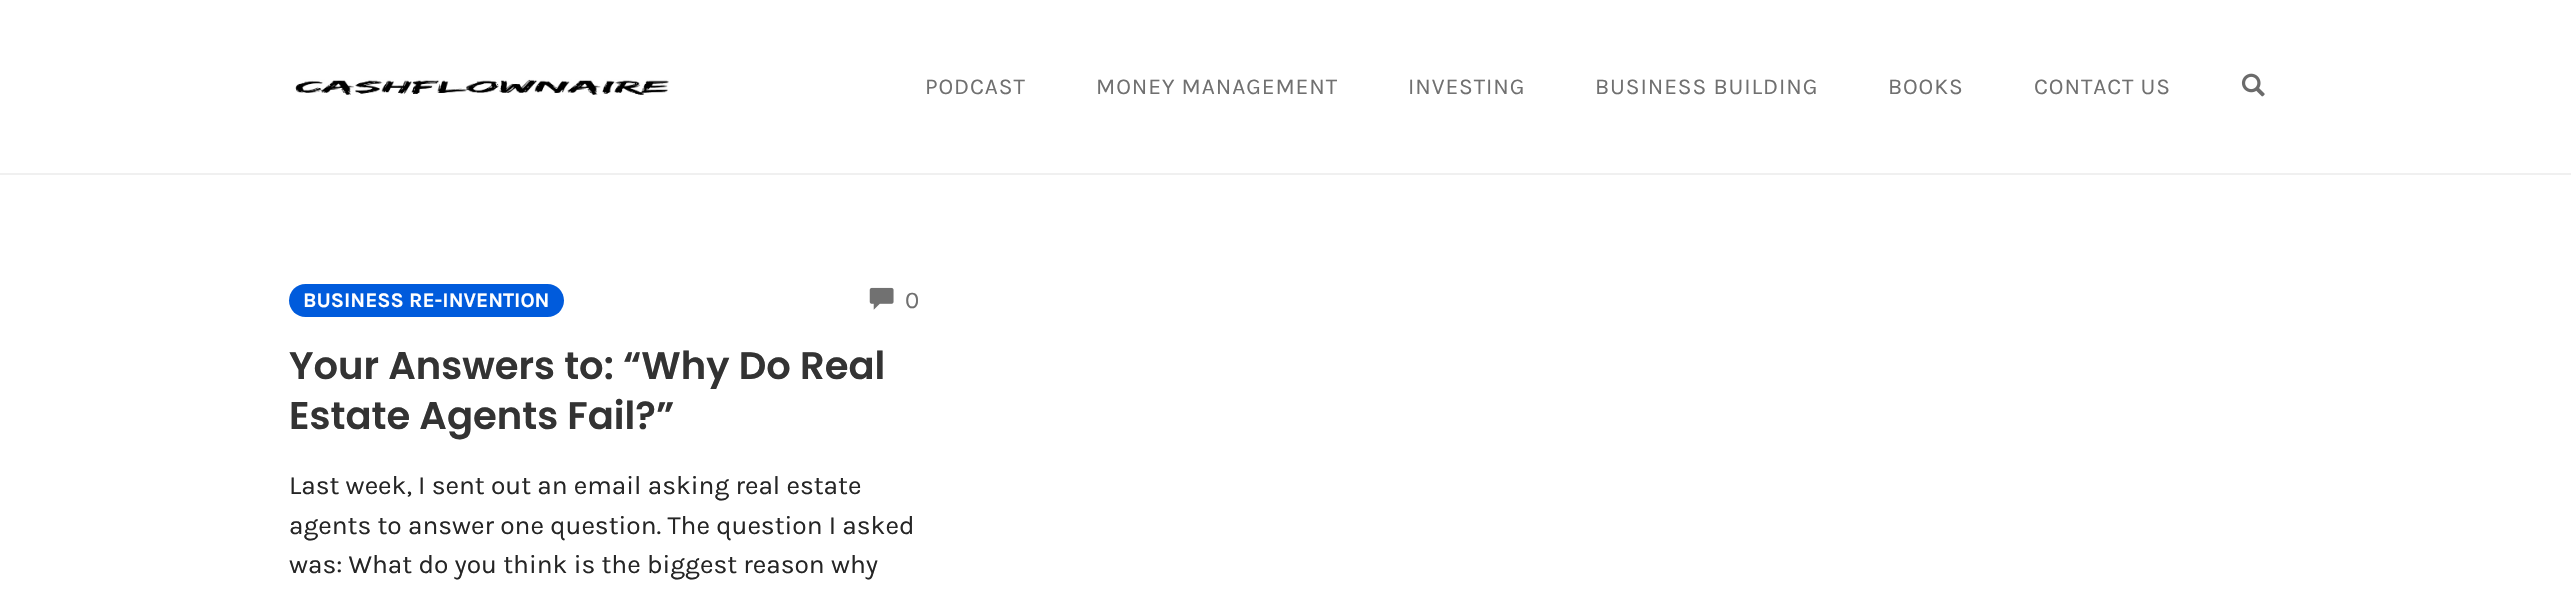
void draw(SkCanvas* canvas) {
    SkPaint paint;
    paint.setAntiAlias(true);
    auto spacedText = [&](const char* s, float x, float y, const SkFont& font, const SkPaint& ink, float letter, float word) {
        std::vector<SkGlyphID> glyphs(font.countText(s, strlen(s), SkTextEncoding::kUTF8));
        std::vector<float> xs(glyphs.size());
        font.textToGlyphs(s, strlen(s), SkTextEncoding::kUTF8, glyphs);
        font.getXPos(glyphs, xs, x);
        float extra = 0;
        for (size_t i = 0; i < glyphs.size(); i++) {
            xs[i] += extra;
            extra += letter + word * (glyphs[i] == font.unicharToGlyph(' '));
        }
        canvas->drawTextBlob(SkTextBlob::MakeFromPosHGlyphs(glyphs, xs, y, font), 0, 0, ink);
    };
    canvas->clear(0xFFFFFFFF);
    paint.setColor(0xFFF0F0F0);
    canvas->drawRect(SkRect::MakeXYWH(0, 173, 2571, 2), paint);
    canvas->drawImageRect(SkImages::DeferredFromEncodedData(SkData::MakeFromFileName("img1.png")), SkRect::MakeXYWH(295, 79, 374, 16), SkSamplingOptions());
    SkFont font1(fontMgr->matchFamilyStyle("Karla", SkFontStyle::Normal()), 22.75f);
    font1.setSubpixel(true);
    paint.setColor(0xFF707070);
    spacedText("PODCAST", 925, 94, font1, paint, 0.9f, 0);
    spacedText("MONEY MANAGEMENT", 1096, 94, font1, paint, 0.9f, 0);
    spacedText("INVESTING", 1408, 94, font1, paint, 0.9f, 0);
    spacedText("BUSINESS BUILDING", 1595, 94, font1, paint, 0.9f, 0);
    spacedText("BOOKS", 1888, 94, font1, paint, 0.9f, 0);
    spacedText("CONTACT US", 2034, 94, font1, paint, 0.9f, 0);
    canvas->drawImageRect(SkImages::DeferredFromEncodedData(SkData::MakeFromFileName("img2.png")), SkRect::MakeXYWH(2241, 73, 24, 24), SkSamplingOptions());
    paint.setColor(0xFF005BDC);
    canvas->drawRoundRect(SkRect::MakeXYWH(289, 284, 275, 33), 16.5f, 16.5f, paint);
    SkFont font2(fontMgr->matchFamilyStyle("Karla", SkFontStyle::Bold()), 20.75f);
    font2.setSubpixel(true);
    paint.setColor(0xFFFFFFFF);
    canvas->drawString("BUSINESS RE-INVENTION", 303, 307, font2, paint);
    canvas->drawImageRect(SkImages::DeferredFromEncodedData(SkData::MakeFromFileName("img3.png")), SkRect::MakeXYWH(869, 287, 25, 23), SkSamplingOptions());
    SkFont font3(fontMgr->matchFamilyStyle("Karla", SkFontStyle::Normal()), 24);
    font3.setSubpixel(true);
    paint.setColor(0xFF707070);
    canvas->drawString("0", 905, 308, font3, paint);
    SkFont font4(fontMgr->matchFamilyStyle("Poppins", SkFontStyle(600, SkFontStyle::kNormal_Width, SkFontStyle::kUpright_Slant)), 38.5f);
    font4.setSubpixel(true);
    paint.setColor(0xFF333333);
    canvas->drawString("Your Answers to: “Why Do Real", 289, 379, font4, paint);
    canvas->drawString("Estate Agents Fail?”", 289, 429, font4, paint);
    SkFont font5(fontMgr->matchFamilyStyle("Karla", SkFontStyle::Normal()), 26.25f);
    font5.setSubpixel(true);
    paint.setColor(0xFF252525);
    canvas->drawString("Last week, I sent out an email asking real estate", 289, 494, font5, paint);
    canvas->drawString("agents to answer one question. The question I asked", 289, 534, font5, paint);
    canvas->drawString("was: What do you think is the biggest reason why", 289, 573, font5, paint);
}
